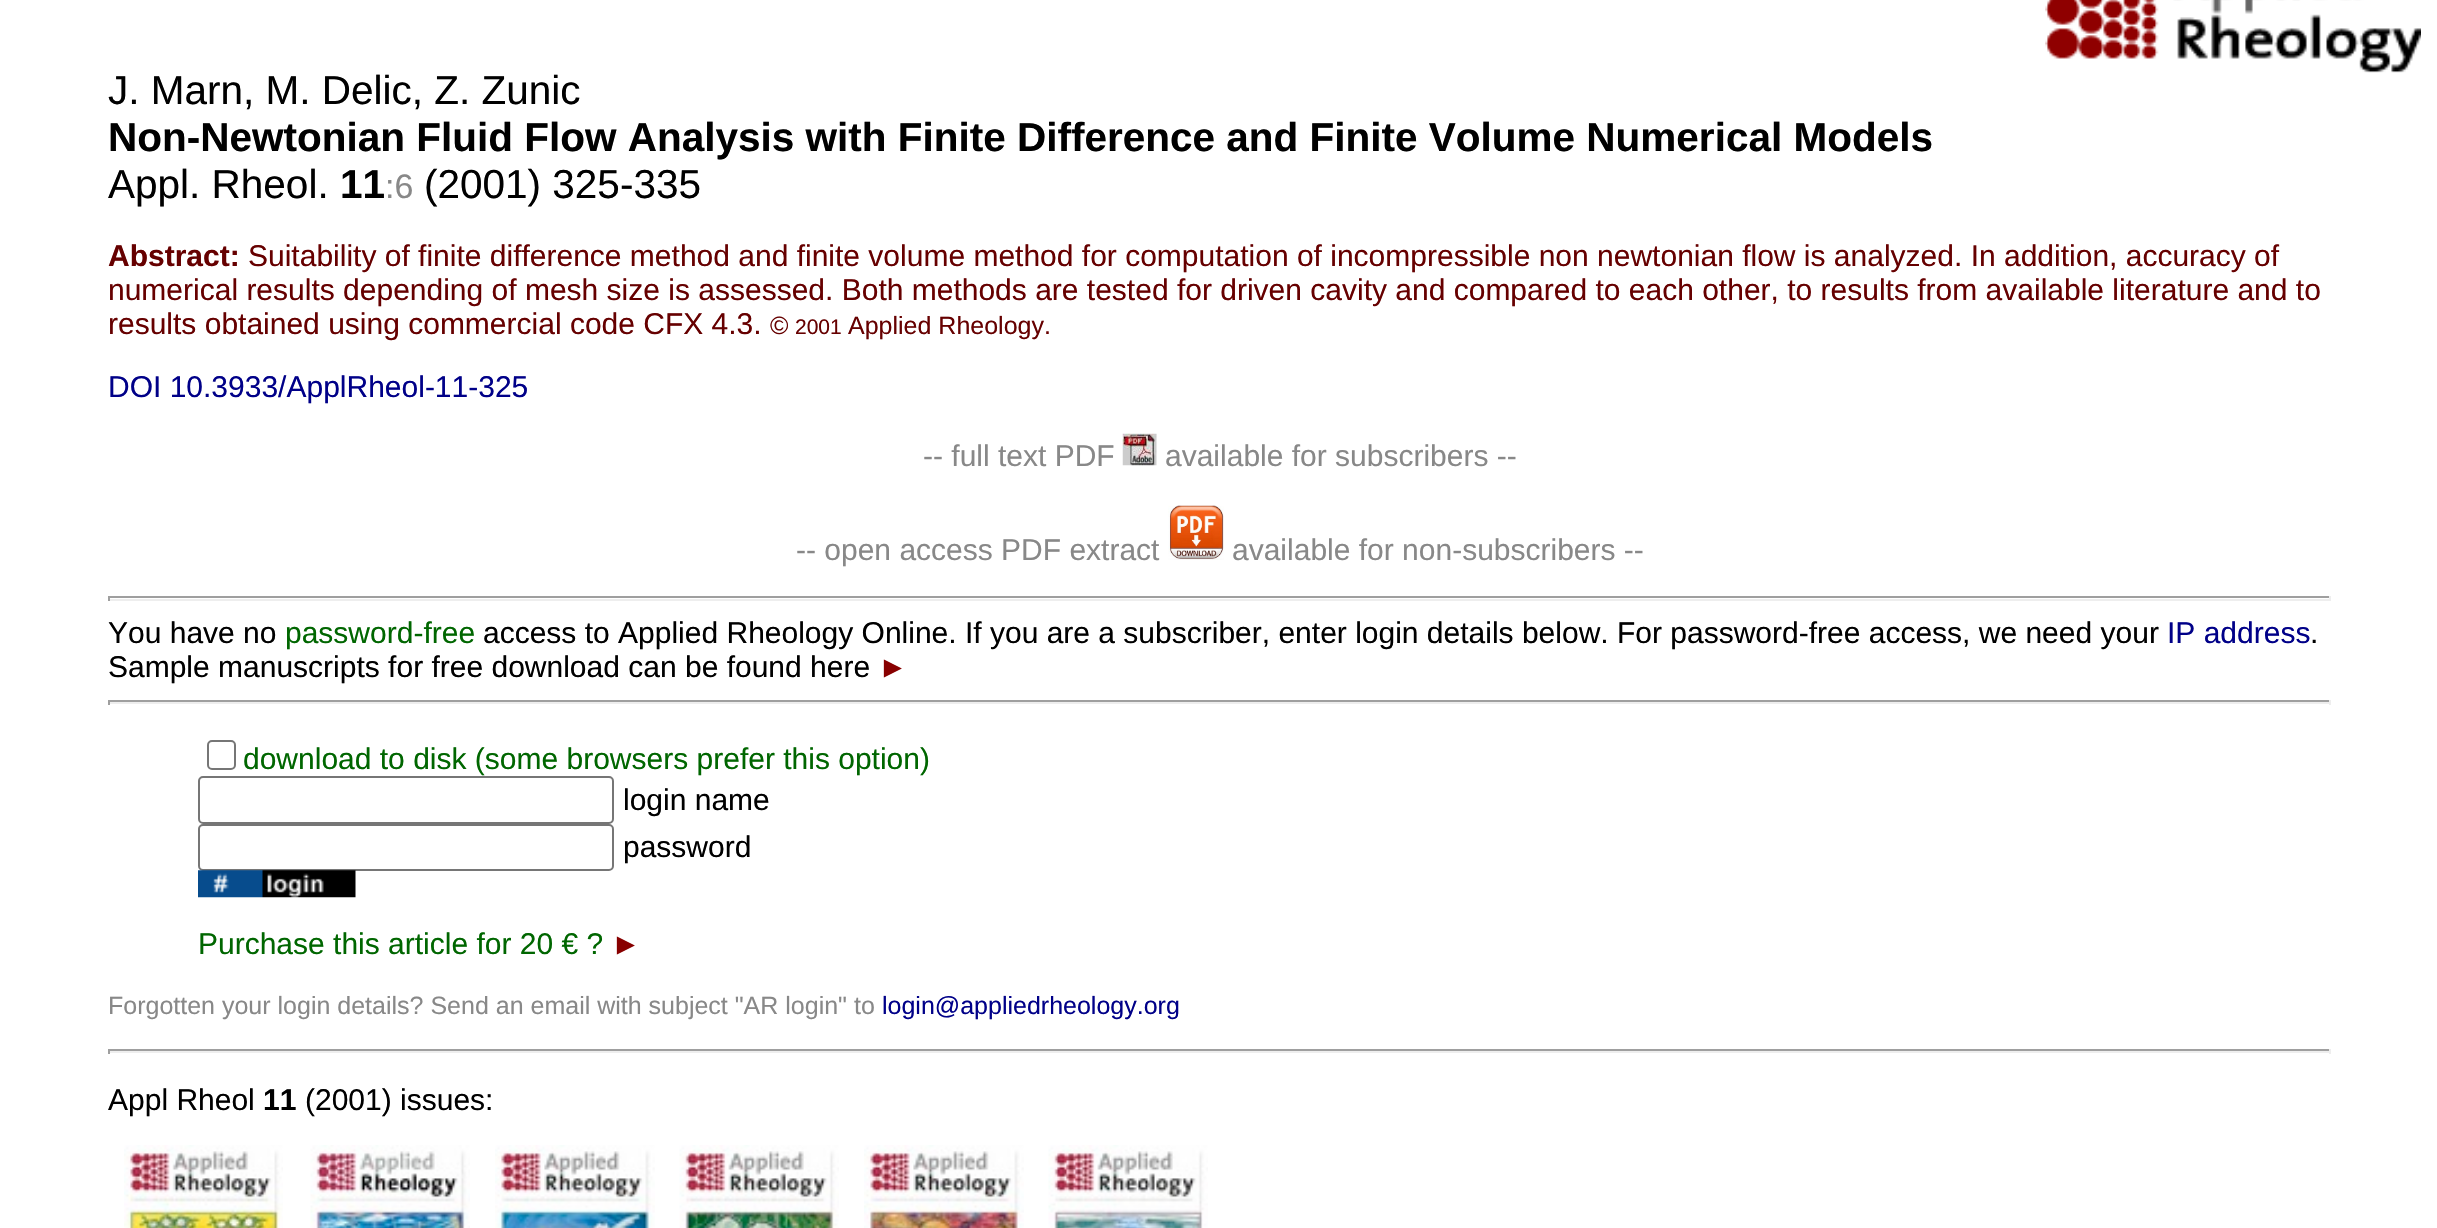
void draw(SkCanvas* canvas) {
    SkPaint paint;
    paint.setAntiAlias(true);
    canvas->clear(0xFFFFFFFF);
    canvas->drawImageRect(SkImages::DeferredFromEncodedData(SkData::MakeFromFileName("img1.png")), SkRect::MakeXYWH(2045, 0, 376, 73), SkSamplingOptions());
    SkFont font1(fontMgr->matchFamilyStyle("Liberation Sans", SkFontStyle::Normal()), 40.5f);
    font1.setSubpixel(true);
    paint.setColor(0xFF000000);
    canvas->drawString("J. Marn, M. Delic, Z. Zunic", 108, 104, font1, paint);
    SkFont font2(fontMgr->matchFamilyStyle("Liberation Sans", SkFontStyle::Bold()), 40.5f);
    font2.setSubpixel(true);
    canvas->drawString("Non-Newtonian Fluid Flow Analysis with Finite Difference and Finite Volume Numerical Models", 108, 151, font2, paint);
    canvas->drawString("Appl. Rheol.", 108, 198, font1, paint);
    canvas->drawString("11", 340, 198, font2, paint);
    SkFont font3(fontMgr->matchFamilyStyle("Liberation Sans", SkFontStyle::Normal()), 34);
    font3.setSubpixel(true);
    paint.setColor(0xFF888888);
    canvas->drawString(":6", 385, 198, font3, paint);
    paint.setColor(0xFF000000);
    canvas->drawString("(2001) 325-335", 424, 198, font1, paint);
    SkFont font4(fontMgr->matchFamilyStyle("Liberation Sans", SkFontStyle::Bold()), 30);
    font4.setSubpixel(true);
    paint.setColor(0xFF660000);
    canvas->drawString("Abstract:", 108, 266, font4, paint);
    SkFont font5(fontMgr->matchFamilyStyle("Liberation Sans", SkFontStyle::Normal()), 30);
    font5.setSubpixel(true);
    canvas->drawString("Suitability of finite difference method and finite volume method for computation of incompressible non newtonian flow is analyzed. In addition, accuracy of", 248, 266, font5, paint);
    canvas->drawString("numerical results depending of mesh size is assessed. Both methods are tested for driven cavity and compared to each other, to results from available literature and to", 108, 300, font5, paint);
    canvas->drawString("results obtained using commercial code CFX 4.3.", 108, 334, font5, paint);
    SkFont font6(fontMgr->matchFamilyStyle("Liberation Sans", SkFontStyle::Normal()), 25);
    font6.setSubpixel(true);
    canvas->drawString("©", 770, 334, font6, paint);
    SkFont font7(fontMgr->matchFamilyStyle("Liberation Sans", SkFontStyle::Normal()), 21);
    font7.setSubpixel(true);
    canvas->drawString("2001", 795, 334, font7, paint);
    canvas->drawString("Applied Rheology.", 848, 334, font6, paint);
    paint.setColor(0xFF000088);
    canvas->drawString("DOI 10.3933/ApplRheol-11-325", 108, 397, font5, paint);
    paint.setColor(0xFF888888);
    canvas->drawString("-- full text PDF", 923, 466, font5, paint);
    canvas->drawImageRect(SkImages::DeferredFromEncodedData(SkData::MakeFromFileName("img2.png")), SkRect::MakeXYWH(1122, 433, 35, 33), SkSamplingOptions());
    canvas->drawString("available for subscribers --", 1165, 466, font5, paint);
    canvas->drawString("-- open access PDF extract", 796, 560, font5, paint);
    canvas->drawImageRect(SkImages::DeferredFromEncodedData(SkData::MakeFromFileName("img3.png")), SkRect::MakeXYWH(1168, 505, 56, 55), SkSamplingOptions());
    canvas->drawString("available for non-subscribers --", 1232, 560, font5, paint);
    paint.setColor(0xFF9F9F9F);
    canvas->drawRect(SkRect::MakeXYWH(108, 596, 2223, 2), paint);
    paint.setColor(0xFFEEEEEE);
    canvas->drawRect(SkRect::MakeXYWH(2329, 596, 2, 5), paint);
    canvas->drawRect(SkRect::MakeXYWH(108, 599, 2223, 2), paint);
    paint.setColor(0xFF9F9F9F);
    canvas->drawRect(SkRect::MakeXYWH(108, 596, 2, 5), paint);
    paint.setColor(0xFF000000);
    canvas->drawString("You have no", 108, 643, font5, paint);
    paint.setColor(0xFF006600);
    canvas->drawString("password-free", 285, 643, font5, paint);
    paint.setColor(0xFF000000);
    canvas->drawString("access to Applied Rheology Online. If you are a subscriber, enter login details below. For password-free access, we need your", 483, 643, font5, paint);
    paint.setColor(0xFF000088);
    canvas->drawString("IP address", 2167, 643, font5, paint);
    paint.setColor(0xFF000000);
    canvas->drawString(".", 2310, 643, font5, paint);
    canvas->drawString("Sample manuscripts for free download can be found here", 108, 677, font5, paint);
    paint.setColor(0xFF880000);
    canvas->drawString("►", 878, 677, font5, paint);
    paint.setColor(0xFF9F9F9F);
    canvas->drawRect(SkRect::MakeXYWH(108, 700, 2223, 2), paint);
    paint.setColor(0xFFEEEEEE);
    canvas->drawRect(SkRect::MakeXYWH(2329, 700, 2, 5), paint);
    canvas->drawRect(SkRect::MakeXYWH(108, 702, 2223, 2), paint);
    paint.setColor(0xFF9F9F9F);
    canvas->drawRect(SkRect::MakeXYWH(108, 700, 2, 5), paint);
    paint.setStyle(SkPaint::kStroke_Style);
    paint.setStrokeWidth(2);
    paint.setColor(0xFF767676);
    canvas->drawRoundRect(SkRect::MakeXYWH(208, 741, 27, 28), 4, 4, paint);
    paint.setStyle(SkPaint::kFill_Style);
    paint.setColor(0xFF006600);
    canvas->drawString("download to disk (some browsers prefer this option)", 243, 769, font5, paint);
    paint.setStyle(SkPaint::kStroke_Style);
    paint.setColor(0xFF767676);
    canvas->drawRoundRect(SkRect::MakeXYWH(199, 777, 414, 46), 4, 4, paint);
    paint.setStyle(SkPaint::kFill_Style);
    paint.setColor(0xFF000000);
    canvas->drawString("login name", 623, 810, font5, paint);
    paint.setStyle(SkPaint::kStroke_Style);
    paint.setColor(0xFF767676);
    canvas->drawRoundRect(SkRect::MakeXYWH(199, 825, 414, 45), 4, 4, paint);
    paint.setStyle(SkPaint::kFill_Style);
    paint.setColor(0xFF000000);
    canvas->drawString("password", 623, 857, font5, paint);
    canvas->drawImageRect(SkImages::DeferredFromEncodedData(SkData::MakeFromFileName("img4.png")), SkRect::MakeXYWH(198, 870, 158, 28), SkSamplingOptions());
    paint.setColor(0xFF006600);
    canvas->drawString("Purchase this article for 20 € ?", 198, 954, font5, paint);
    paint.setColor(0xFF880000);
    canvas->drawString("►", 611, 954, font5, paint);
    paint.setColor(0xFF888888);
    canvas->drawString("Forgotten your login details? Send an email with subject \"AR login\" to", 108, 1014, font6, paint);
    paint.setColor(0xFF000088);
    canvas->drawString("login@appliedrheology.org", 882, 1014, font6, paint);
    paint.setColor(0xFF9F9F9F);
    canvas->drawRect(SkRect::MakeXYWH(108, 1049, 2223, 2), paint);
    paint.setColor(0xFFEEEEEE);
    canvas->drawRect(SkRect::MakeXYWH(2329, 1049, 2, 5), paint);
    canvas->drawRect(SkRect::MakeXYWH(108, 1051, 2223, 2), paint);
    paint.setColor(0xFF9F9F9F);
    canvas->drawRect(SkRect::MakeXYWH(108, 1049, 2, 5), paint);
    paint.setColor(0xFF000000);
    canvas->drawString("Appl Rheol", 108, 1110, font5, paint);
    canvas->drawString("11", 263, 1110, font4, paint);
    canvas->drawString("(2001) issues:", 305, 1110, font5, paint);
    canvas->drawImageRect(SkImages::DeferredFromEncodedData(SkData::MakeFromFileName("img5.png")), SkRect::MakeXYWH(124, 1145, 159, 83), SkSamplingOptions());
    canvas->drawImageRect(SkImages::DeferredFromEncodedData(SkData::MakeFromFileName("img6.png")), SkRect::MakeXYWH(310, 1145, 160, 83), SkSamplingOptions());
    canvas->drawImageRect(SkImages::DeferredFromEncodedData(SkData::MakeFromFileName("img7.png")), SkRect::MakeXYWH(495, 1145, 160, 83), SkSamplingOptions());
    canvas->drawImageRect(SkImages::DeferredFromEncodedData(SkData::MakeFromFileName("img8.png")), SkRect::MakeXYWH(679, 1145, 160, 83), SkSamplingOptions());
    canvas->drawImageRect(SkImages::DeferredFromEncodedData(SkData::MakeFromFileName("img9.png")), SkRect::MakeXYWH(864, 1145, 160, 83), SkSamplingOptions());
    canvas->drawImageRect(SkImages::DeferredFromEncodedData(SkData::MakeFromFileName("img10.png")), SkRect::MakeXYWH(1048, 1145, 160, 83), SkSamplingOptions());
}
